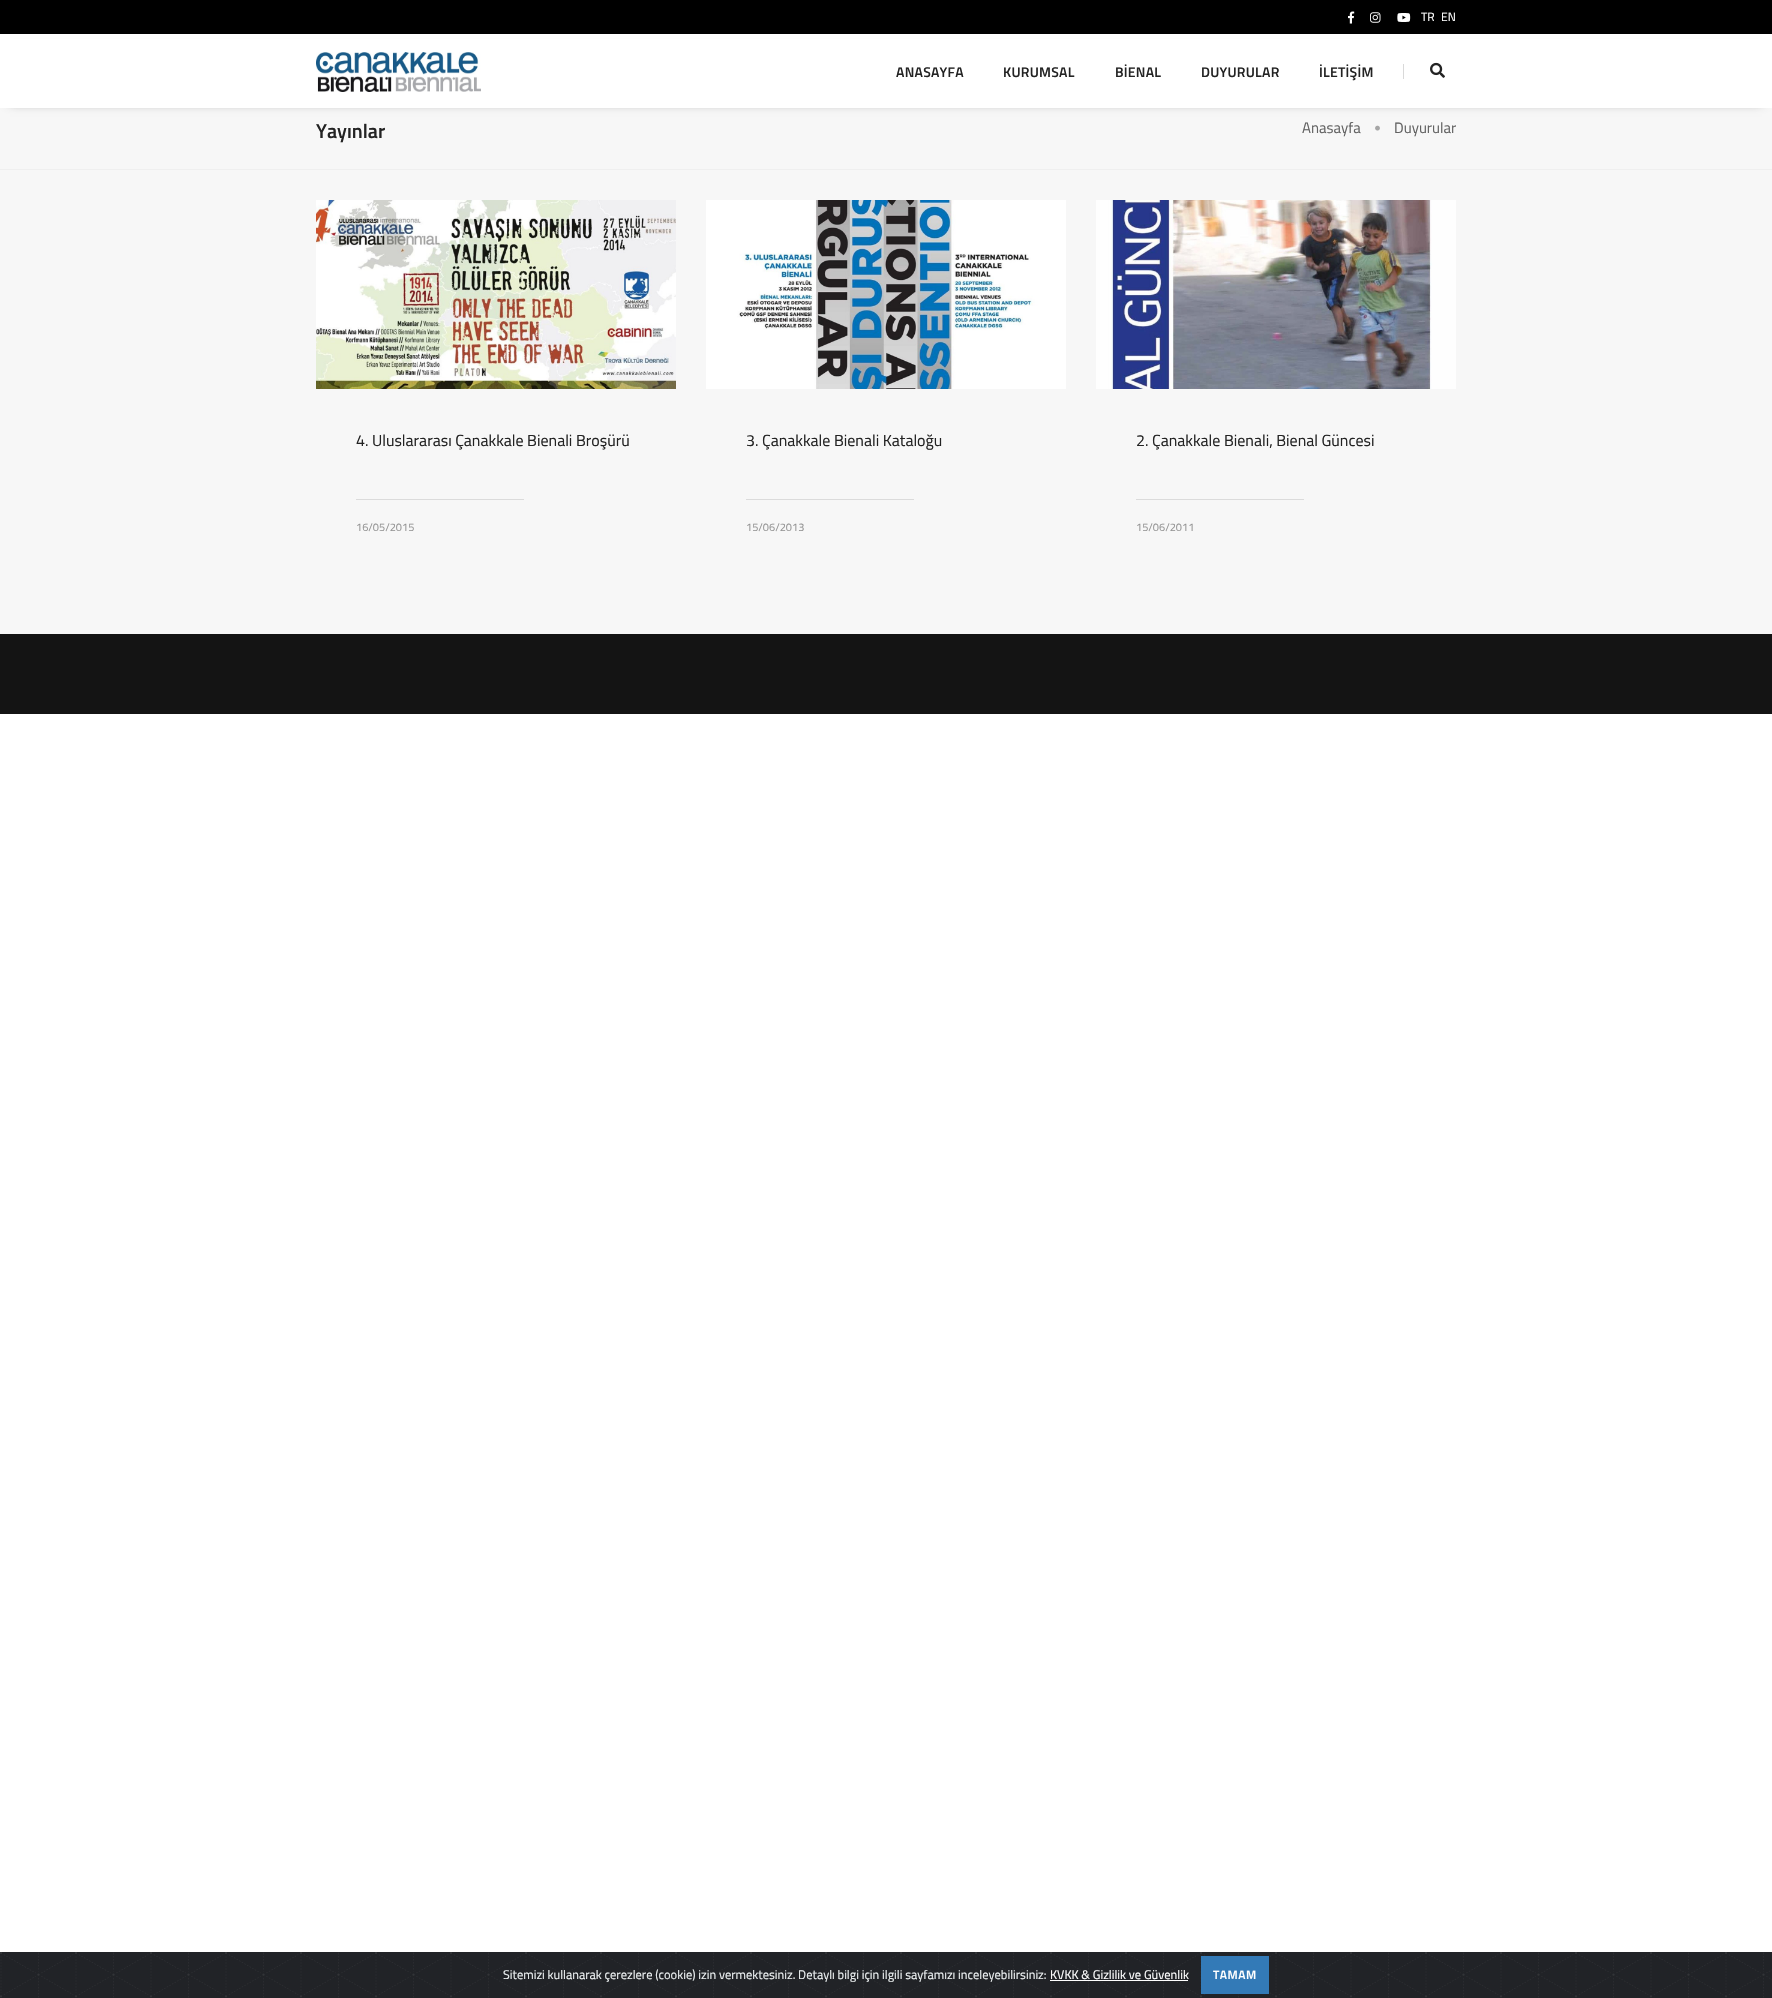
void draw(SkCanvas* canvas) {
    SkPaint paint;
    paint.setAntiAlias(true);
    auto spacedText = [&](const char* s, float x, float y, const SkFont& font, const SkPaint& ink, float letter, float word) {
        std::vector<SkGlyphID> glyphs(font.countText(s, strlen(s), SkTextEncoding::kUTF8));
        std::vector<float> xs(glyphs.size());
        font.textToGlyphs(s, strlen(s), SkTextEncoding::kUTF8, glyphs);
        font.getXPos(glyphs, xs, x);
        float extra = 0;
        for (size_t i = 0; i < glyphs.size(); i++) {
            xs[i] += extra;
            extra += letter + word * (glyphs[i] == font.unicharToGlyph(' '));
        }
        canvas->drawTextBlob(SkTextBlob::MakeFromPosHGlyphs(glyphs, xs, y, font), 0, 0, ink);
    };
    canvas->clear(0xFFFFFFFF);
    paint.setColor(0xFF000000);
    canvas->drawRect(SkRect::MakeXYWH(0, 0, 1772, 34), paint);
    canvas->drawImageRect(SkImages::DeferredFromEncodedData(SkData::MakeFromFileName("img1.png")), SkRect::MakeXYWH(1348, 11, 7, 13), SkSamplingOptions());
    canvas->drawImageRect(SkImages::DeferredFromEncodedData(SkData::MakeFromFileName("img2.png")), SkRect::MakeXYWH(1370, 12, 11, 11), SkSamplingOptions());
    canvas->drawImageRect(SkImages::DeferredFromEncodedData(SkData::MakeFromFileName("img3.png")), SkRect::MakeXYWH(1397, 13, 14, 9), SkSamplingOptions());
    SkFont font1(fontMgr->matchFamilyStyle("Titillium Web", SkFontStyle::Normal()), 12);
    font1.setSubpixel(true);
    paint.setColor(0xFFFFFFFF);
    canvas->drawString("TR", 1421, 21, font1, paint);
    canvas->drawString("EN", 1441, 21, font1, paint);
    paint.setColor(0xFFF7F7F7);
    canvas->drawRect(SkRect::MakeXYWH(0, 108, 1772, 61), paint);
    paint.setColor(0x99000000);
    paint.setMaskFilter(SkMaskFilter::MakeBlur(kNormal_SkBlurStyle, 5));
    canvas->drawRect(SkRect::MakeXYWH(10, 50, 1752, 52), paint);
    paint.setMaskFilter(nullptr);
    paint.setColor(0xFFFFFFFF);
    canvas->drawRect(SkRect::MakeXYWH(0, 39, 1772, 69), paint);
    canvas->drawImageRect(SkImages::DeferredFromEncodedData(SkData::MakeFromFileName("img4.png")), SkRect::MakeXYWH(316, 52, 165, 40), SkSamplingOptions());
    SkFont font2(fontMgr->matchFamilyStyle("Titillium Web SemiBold", SkFontStyle(600, SkFontStyle::kNormal_Width, SkFontStyle::kUpright_Slant)), 14);
    font2.setSubpixel(true);
    paint.setColor(0xFF232323);
    spacedText("ANASAYFA", 896, 77, font2, paint, 0.25f, 0);
    spacedText("KURUMSAL", 1003, 77, font2, paint, 0.25f, 0);
    spacedText("BİENAL", 1115, 77, font2, paint, 0.25f, 0);
    spacedText("DUYURULAR", 1201, 77, font2, paint, 0.25f, 0);
    spacedText("İLETİŞİM", 1319, 77, font2, paint, 0.25f, 0);
    paint.setColor(0xFFD9D9D9);
    canvas->drawRect(SkRect::MakeXYWH(1403, 64, 1, 15), paint);
    canvas->drawImageRect(SkImages::DeferredFromEncodedData(SkData::MakeFromFileName("img5.png")), SkRect::MakeXYWH(1430, 62, 15, 16), SkSamplingOptions());
    SkFont font3(fontMgr->matchFamilyStyle("Titillium Web SemiBold", SkFontStyle(600, SkFontStyle::kNormal_Width, SkFontStyle::kUpright_Slant)), 20);
    font3.setSubpixel(true);
    paint.setColor(0xFF232323);
    canvas->drawString("Yayınlar", 316, 138, font3, paint);
    SkFont font4(fontMgr->matchFamilyStyle("Titillium Web", SkFontStyle::Normal()), 15);
    font4.setSubpixel(true);
    paint.setColor(0xFF626262);
    canvas->drawString("Anasayfa", 1302, 133, font4, paint);
    canvas->drawImageRect(SkImages::DeferredFromEncodedData(SkData::MakeFromFileName("img6.png")), SkRect::MakeXYWH(1375, 125, 5, 6), SkSamplingOptions());
    canvas->drawString("Duyurular", 1394, 133, font4, paint);
    paint.setColor(0xFFF7F7F7);
    canvas->drawRect(SkRect::MakeXYWH(0, 170, 1772, 464), paint);
    paint.setColor(0xFFEFEFEF);
    canvas->drawRect(SkRect::MakeXYWH(0, 169, 1772, 1), paint);
    canvas->drawImageRect(SkImages::DeferredFromEncodedData(SkData::MakeFromFileName("img7.png")), SkRect::MakeXYWH(316, 200, 360, 189), SkSamplingOptions());
    SkFont font5(fontMgr->matchFamilyStyle("Titillium Web", SkFontStyle::Normal()), 16);
    font5.setSubpixel(true);
    paint.setColor(0xFF232323);
    canvas->drawString("4. Uluslararası Çanakkale Bienali Broşürü", 356, 446, font5, paint);
    paint.setColor(0xFFDBDBDB);
    canvas->drawRect(SkRect::MakeXYWH(356, 499, 168, 1), paint);
    SkFont font6(fontMgr->matchFamilyStyle("Titillium Web", SkFontStyle::Normal()), 11);
    font6.setSubpixel(true);
    paint.setColor(0xFF939393);
    canvas->drawString("16/05/2015", 356, 531, font6, paint);
    canvas->drawImageRect(SkImages::DeferredFromEncodedData(SkData::MakeFromFileName("img8.png")), SkRect::MakeXYWH(706, 200, 360, 189), SkSamplingOptions());
    paint.setColor(0xFF232323);
    canvas->drawString("3. Çanakkale Bienali Kataloğu", 746, 446, font5, paint);
    paint.setColor(0xFFDBDBDB);
    canvas->drawRect(SkRect::MakeXYWH(746, 499, 168, 1), paint);
    paint.setColor(0xFF939393);
    canvas->drawString("15/06/2013", 746, 531, font6, paint);
    canvas->drawImageRect(SkImages::DeferredFromEncodedData(SkData::MakeFromFileName("img9.png")), SkRect::MakeXYWH(1096, 200, 360, 189), SkSamplingOptions());
    paint.setColor(0xFF232323);
    canvas->drawString("2. Çanakkale Bienali, Bienal Güncesi", 1136, 446, font5, paint);
    paint.setColor(0xFFDBDBDB);
    canvas->drawRect(SkRect::MakeXYWH(1136, 499, 168, 1), paint);
    paint.setColor(0xFF939393);
    canvas->drawString("15/06/2011", 1136, 531, font6, paint);
    paint.setColor(0xFF141414);
    canvas->drawRect(SkRect::MakeXYWH(0, 634, 1772, 80), paint);
    canvas->drawImageRect(SkImages::DeferredFromEncodedData(SkData::MakeFromFileName("img10.png")), SkRect::MakeXYWH(0, 1952, 1772, 46), SkSamplingOptions());
    SkFont font7(fontMgr->matchFamilyStyle("Titillium Web", SkFontStyle::Normal()), 12.5f);
    font7.setSubpixel(true);
    paint.setColor(0xFFECF0F1);
    canvas->drawString("Sitemizi kullanarak çerezlere (cookie) izin vermektesiniz. Detaylı bilgi için ilgili sayfamızı inceleyebilirsiniz:", 503, 1979, font7, paint);
    paint.setColor(0xFFFFFFFF);
    canvas->drawString("KVKK & Gizlilik ve Güvenlik", 1050, 1979, font7, paint);
    canvas->drawRect(SkRect::MakeXYWH(1050, 1980, 138, 1), paint);
    paint.setColor(0xFF337AB7);
    canvas->drawRect(SkRect::MakeXYWH(1201, 1956, 68, 38), paint);
    SkFont font8(fontMgr->matchFamilyStyle("Titillium Web SemiBold", SkFontStyle(600, SkFontStyle::kNormal_Width, SkFontStyle::kUpright_Slant)), 12);
    font8.setSubpixel(true);
    paint.setColor(0xFFFFFFFF);
    spacedText("TAMAM", 1213, 1979, font8, paint, 0.5f, 0);
}
